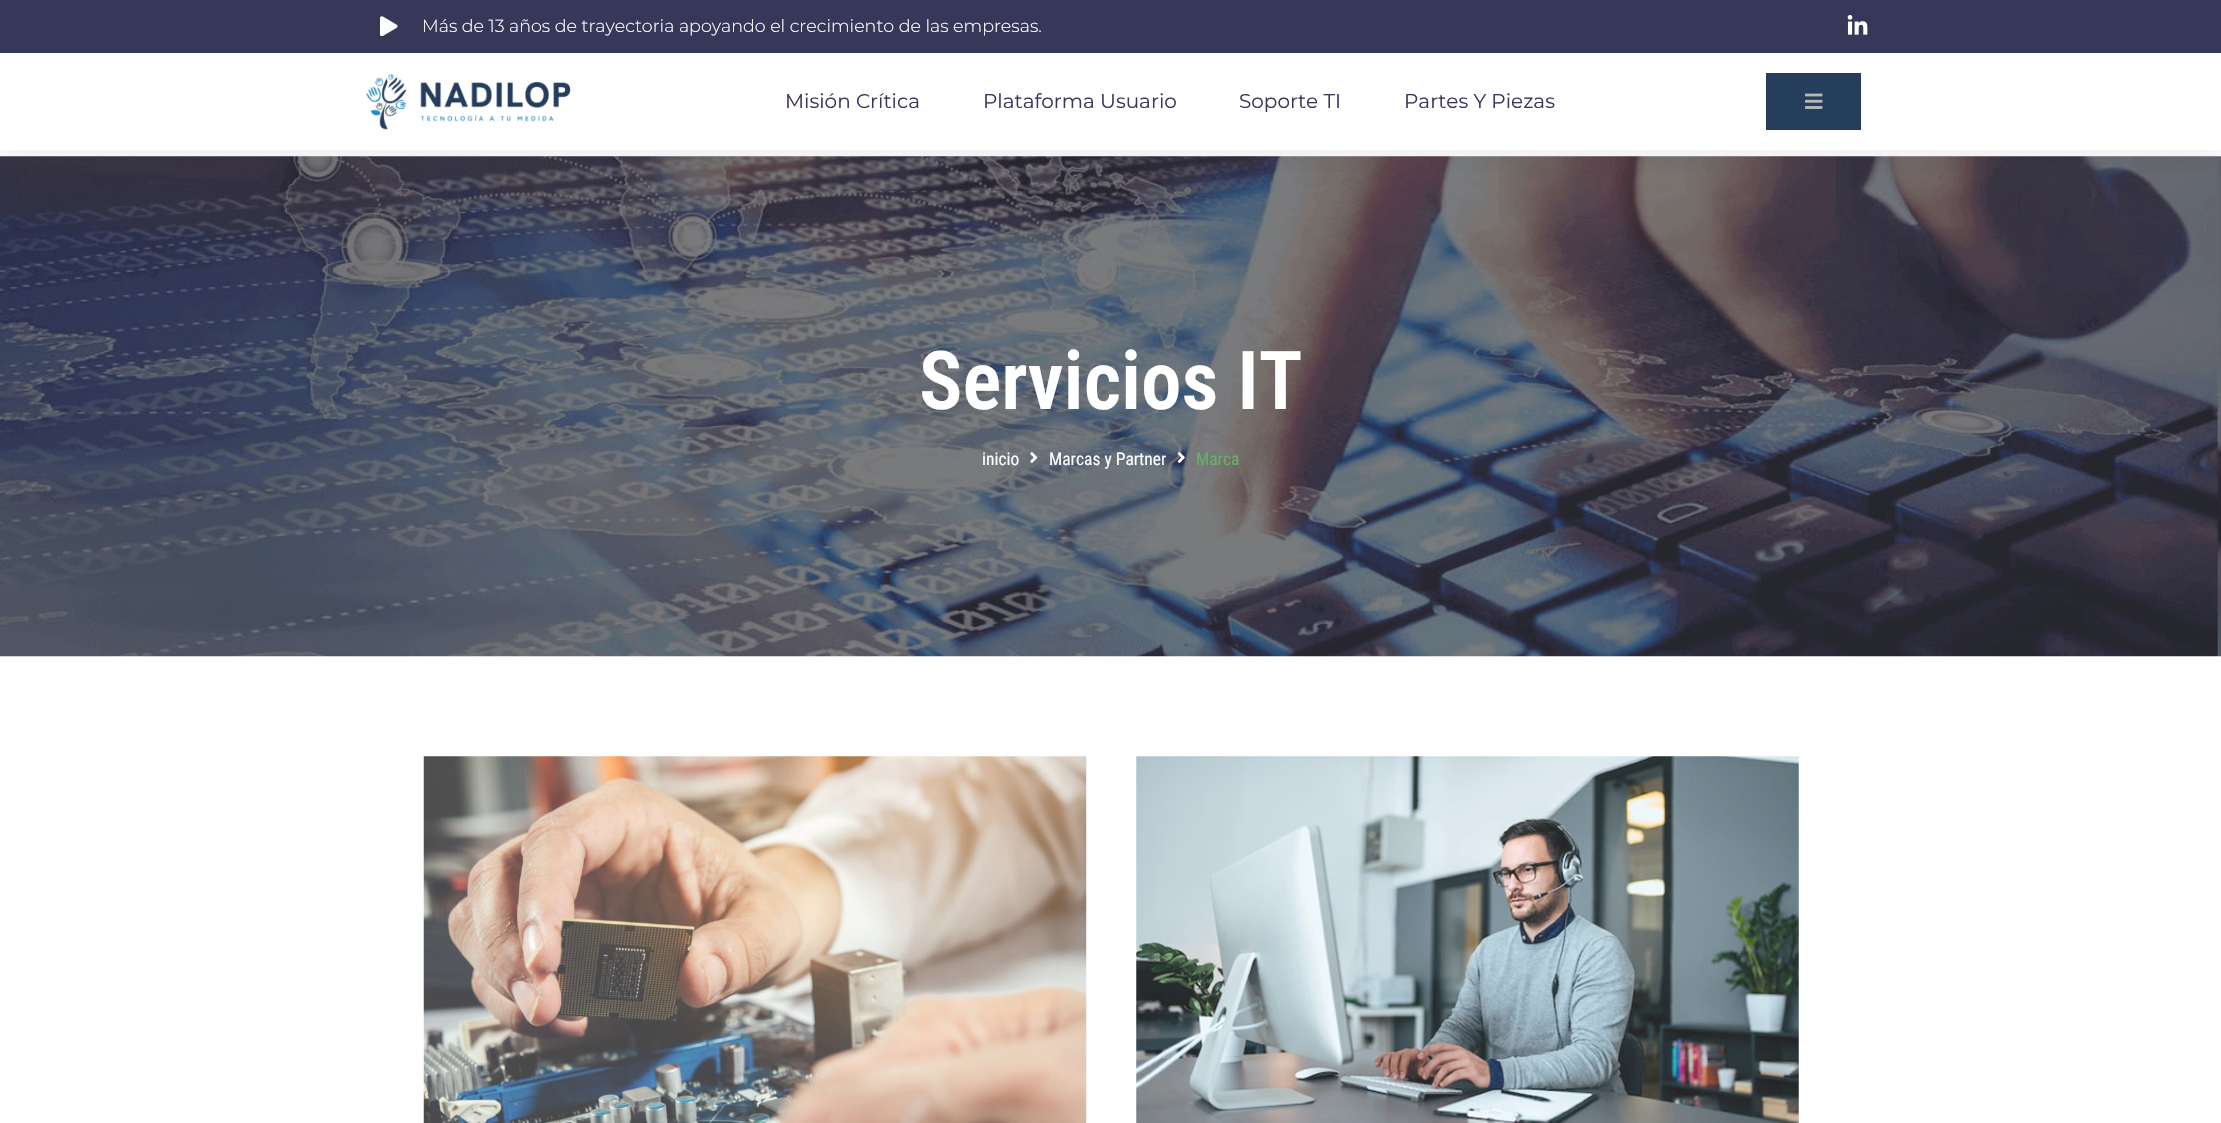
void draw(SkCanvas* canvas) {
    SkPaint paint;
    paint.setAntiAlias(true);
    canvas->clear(0xFFFFFFFF);
    canvas->drawImageRect(SkImages::DeferredFromEncodedData(SkData::MakeFromFileName("img5.png")), SkRect::MakeXYWH(0, 156, 2221, 501), SkSamplingOptions());
    canvas->save();
    canvas->clipRect(SkRect::MakeXYWH(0, 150, 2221, 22));
    paint.setColor(0x1A242424);
    paint.setMaskFilter(SkMaskFilter::MakeBlur(kNormal_SkBlurStyle, 19));
    canvas->drawRect(SkRect::MakeXYWH(0, 6, 2221, 150), paint);
    paint.setMaskFilter(nullptr);
    canvas->restore();
    paint.setColor(0xFF37375A);
    canvas->drawRect(SkRect::MakeXYWH(0, 0, 2221, 53), paint);
    canvas->drawImageRect(SkImages::DeferredFromEncodedData(SkData::MakeFromFileName("img1.png")), SkRect::MakeXYWH(380, 16, 18, 20), SkSamplingOptions());
    SkFont font1(fontMgr->matchFamilyStyle("Montserrat", SkFontStyle(300, SkFontStyle::kNormal_Width, SkFontStyle::kUpright_Slant)), 17.5f);
    font1.setSubpixel(true);
    paint.setColor(0xFFFFFFFF);
    canvas->drawString("Más de 13 años de trayectoria apoyando el crecimiento de las empresas.", 422, 32, font1, paint);
    canvas->drawImageRect(SkImages::DeferredFromEncodedData(SkData::MakeFromFileName("img2.png")), SkRect::MakeXYWH(1847, 15, 21, 20), SkSamplingOptions());
    canvas->drawImageRect(SkImages::DeferredFromEncodedData(SkData::MakeFromFileName("img3.png")), SkRect::MakeXYWH(365, 73, 206, 57), SkSamplingOptions());
    SkFont font2(fontMgr->matchFamilyStyle("Montserrat", SkFontStyle::Normal()), 20);
    font2.setSubpixel(true);
    paint.setColor(0xFF37375A);
    canvas->drawString("Misión Crítica", 785, 108, font2, paint);
    canvas->drawString("Plataforma Usuario", 983, 108, font2, paint);
    canvas->drawString("Soporte TI", 1239, 108, font2, paint);
    canvas->drawString("Partes Y Piezas", 1404, 108, font2, paint);
    paint.setColor(0xFF243E5C);
    canvas->drawRect(SkRect::MakeXYWH(1766, 73, 95, 57), paint);
    canvas->drawImageRect(SkImages::DeferredFromEncodedData(SkData::MakeFromFileName("img4.png")), SkRect::MakeXYWH(1805, 93, 18, 16), SkSamplingOptions());
    SkFont font3(fontMgr->matchFamilyStyle("Roboto Condensed", SkFontStyle(600, SkFontStyle::kNormal_Width, SkFontStyle::kUpright_Slant)), 81.25f);
    font3.setSubpixel(true);
    paint.setColor(0xFFFFFFFF);
    canvas->drawString("Servicios IT", 919, 409, font3, paint);
    SkFont font4(fontMgr->matchFamilyStyle("Roboto Condensed", SkFontStyle::Normal()), 17.5f);
    font4.setSubpixel(true);
    canvas->drawString("inicio", 982, 465, font4, paint);
    canvas->drawImageRect(SkImages::DeferredFromEncodedData(SkData::MakeFromFileName("img6.png")), SkRect::MakeXYWH(1030, 452, 8, 11), SkSamplingOptions());
    canvas->drawString("Marcas y Partner", 1049, 465, font4, paint);
    canvas->drawImageRect(SkImages::DeferredFromEncodedData(SkData::MakeFromFileName("img7.png")), SkRect::MakeXYWH(1177, 452, 8, 11), SkSamplingOptions());
    paint.setColor(0xFF65B260);
    canvas->drawString("Marca", 1196, 465, font4, paint);
    canvas->drawImageRect(SkImages::DeferredFromEncodedData(SkData::MakeFromFileName("img8.png")), SkRect::MakeXYWH(423, 756, 664, 367), SkSamplingOptions());
    canvas->drawImageRect(SkImages::DeferredFromEncodedData(SkData::MakeFromFileName("img9.png")), SkRect::MakeXYWH(1136, 756, 663, 367), SkSamplingOptions());
}
